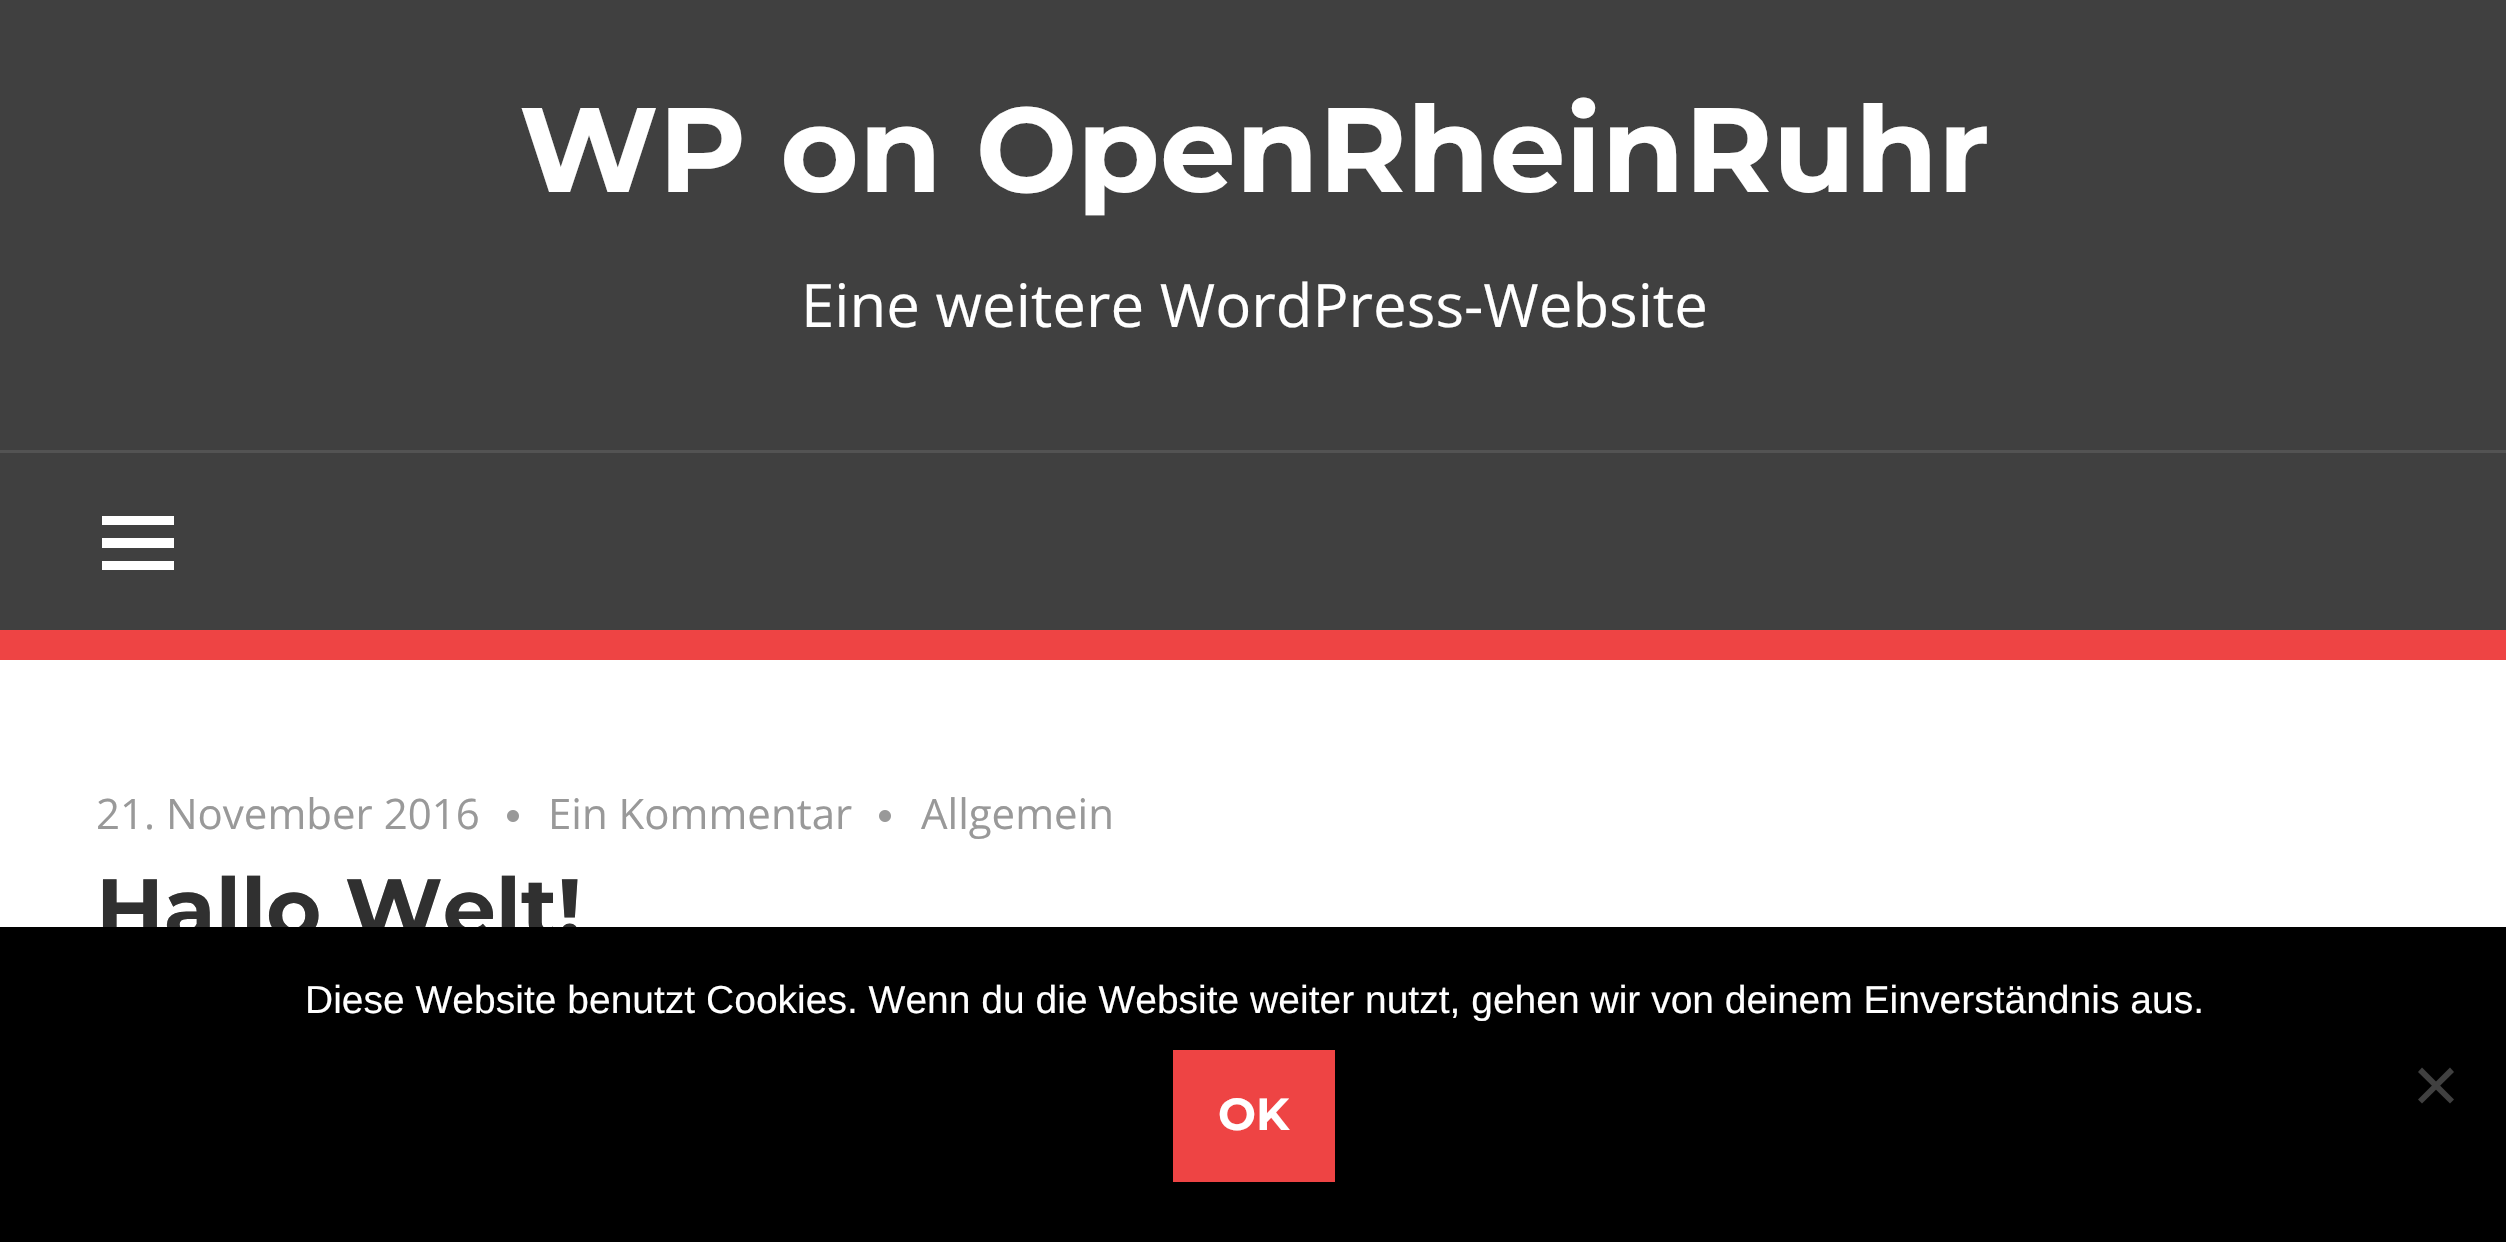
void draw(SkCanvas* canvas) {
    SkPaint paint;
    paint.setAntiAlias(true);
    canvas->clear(0xFF404040);
    paint.setColor(0xFFEE4444);
    canvas->drawRect(SkRect::MakeXYWH(0, 630, 2506, 30), paint);
    SkFont font1(fontMgr->matchFamilyStyle("Montserrat", SkFontStyle::Bold()), 120);
    font1.setSubpixel(true);
    paint.setColor(0xFFFFFFFF);
    canvas->drawString("WP on OpenRheinRuhr", 519, 192, font1, paint);
    SkFont font2(fontMgr->matchFamilyStyle("Open Sans", SkFontStyle::Normal()), 60);
    font2.setSubpixel(true);
    canvas->drawString("Eine weitere WordPress-Website", 801, 327, font2, paint);
    paint.setColor(0xFF535353);
    canvas->drawRect(SkRect::MakeXYWH(0, 450, 2506, 3), paint);
    paint.setColor(0xFFFFFFFF);
    canvas->drawPath(SkPathBuilder().moveTo(102, 570).lineTo(102, 561).lineTo(174, 561).lineTo(174, 570).close().moveTo(102, 516).lineTo(174, 516).lineTo(174, 525).lineTo(102, 525).close().moveTo(102, 548).lineTo(102, 538).lineTo(174, 538).lineTo(174, 548).close().detach(), paint);
    canvas->drawRect(SkRect::MakeXYWH(0, 660, 2506, 267), paint);
    SkFont font3(fontMgr->matchFamilyStyle("Open Sans", SkFontStyle::Normal()), 42);
    font3.setSubpixel(true);
    paint.setColor(0xFF999999);
    canvas->drawString("21. November 2016", 96, 829, font3, paint);
    canvas->drawImageRect(SkImages::DeferredFromEncodedData(SkData::MakeFromFileName("img1.png")), SkRect::MakeXYWH(507, 810, 12, 12), SkSamplingOptions());
    canvas->drawString("Ein Kommentar", 548, 829, font3, paint);
    canvas->drawImageRect(SkImages::DeferredFromEncodedData(SkData::MakeFromFileName("img1.png")), SkRect::MakeXYWH(879, 810, 12, 12), SkSamplingOptions());
    canvas->drawString("Allgemein", 921, 829, font3, paint);
    SkFont font4(fontMgr->matchFamilyStyle("Montserrat", SkFontStyle::Bold()), 84);
    font4.setSubpixel(true);
    paint.setColor(0xFF303030);
    canvas->drawString("Hallo Welt!", 96, 938, font4, paint);
    paint.setColor(0xFF000000);
    canvas->drawRect(SkRect::MakeXYWH(0, 927, 2506, 315), paint);
    SkFont font5(fontMgr->matchFamilyStyle("Liberation Sans", SkFontStyle::Normal()), 39);
    font5.setSubpixel(true);
    paint.setColor(0xFFFFFFFF);
    canvas->drawString("Diese Website benutzt Cookies. Wenn du die Website weiter nutzt, gehen wir von deinem Einverständnis aus.", 305, 1013, font5, paint);
    paint.setColor(0xFF404040);
    canvas->drawPath(SkPathBuilder().moveTo(2450, 1067.5f).lineTo(2454, 1072).lineTo(2422, 1103.5f).lineTo(2418, 1099.5f).close().detach(), paint);
    canvas->drawPath(SkPathBuilder().moveTo(2418, 1072).lineTo(2422, 1067.5f).lineTo(2454, 1099.5f).lineTo(2450, 1103.5f).close().detach(), paint);
    paint.setColor(0xFFEE4444);
    canvas->drawRect(SkRect::MakeXYWH(1173, 1050, 162, 132), paint);
    SkFont font6(fontMgr->matchFamilyStyle("Montserrat", SkFontStyle::Bold()), 45);
    font6.setSubpixel(true);
    paint.setColor(0xFFFFFFFF);
    canvas->drawString("OK", 1218, 1130, font6, paint);
}
